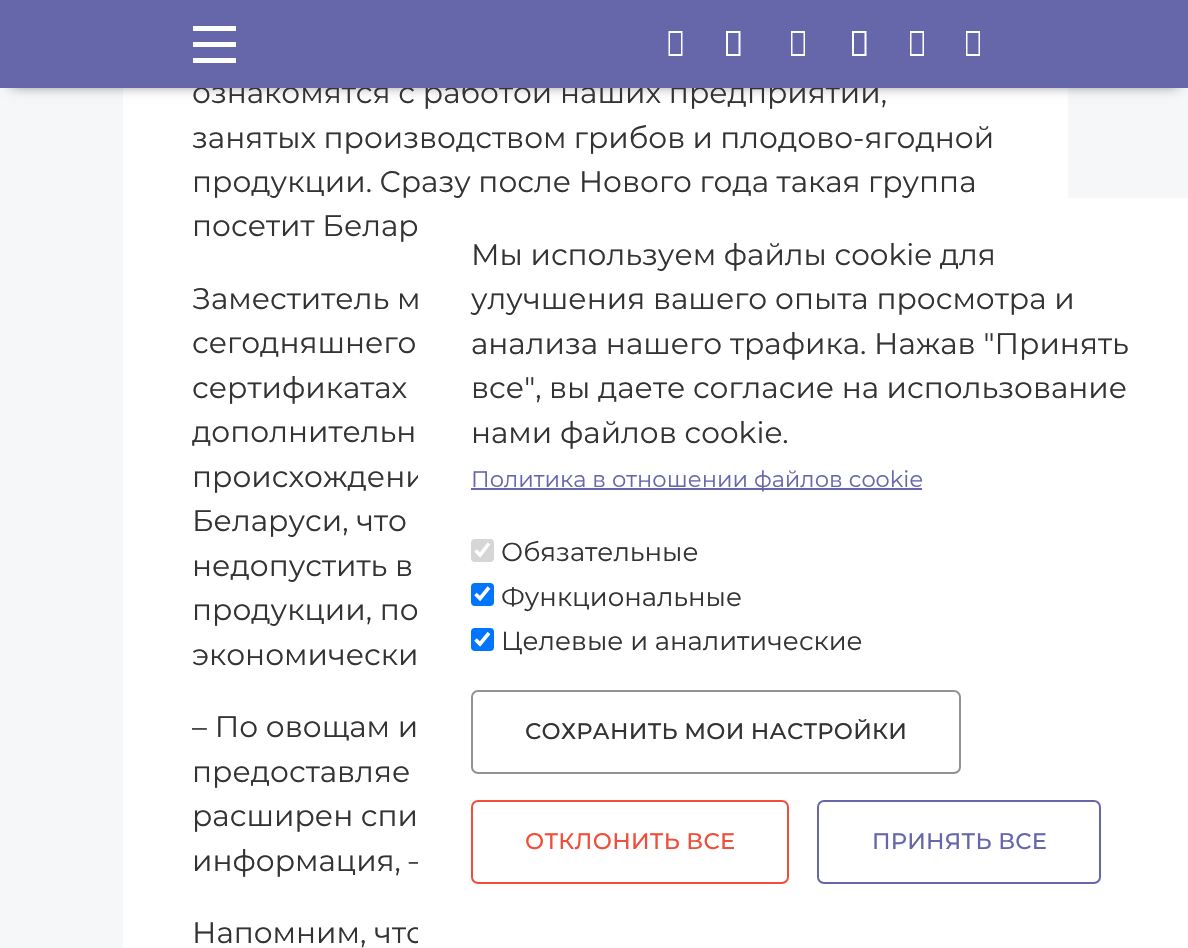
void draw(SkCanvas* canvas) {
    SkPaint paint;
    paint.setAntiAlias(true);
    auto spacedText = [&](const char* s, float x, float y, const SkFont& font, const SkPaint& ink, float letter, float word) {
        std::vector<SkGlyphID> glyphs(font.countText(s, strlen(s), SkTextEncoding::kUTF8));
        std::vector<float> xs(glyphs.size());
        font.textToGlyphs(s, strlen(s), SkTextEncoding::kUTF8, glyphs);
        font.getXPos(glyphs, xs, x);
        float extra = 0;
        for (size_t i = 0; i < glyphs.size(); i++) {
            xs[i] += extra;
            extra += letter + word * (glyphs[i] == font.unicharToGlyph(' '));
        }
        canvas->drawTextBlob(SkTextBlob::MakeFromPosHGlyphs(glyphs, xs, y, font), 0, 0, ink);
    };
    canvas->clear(0xFFF6F7F8);
    paint.setColor(0xFFFFFFFF);
    canvas->drawRect(SkRect::MakeXYWH(123, 88, 945, 860), paint);
    paint.setColor(0x80000000);
    paint.setMaskFilter(SkMaskFilter::MakeBlur(kNormal_SkBlurStyle, 6));
    canvas->drawRect(SkRect::MakeXYWH(11, 19, 1167, 67), paint);
    paint.setMaskFilter(nullptr);
    SkFont font1(fontMgr->matchFamilyStyle("Montserrat", SkFontStyle::Normal()), 29.7f);
    font1.setSubpixel(true);
    paint.setColor(0xFF333333);
    canvas->drawString("ознакомятся с работой наших предприятий,", 192, 103, font1, paint);
    paint.setColor(0xFF6667AB);
    canvas->drawRect(SkRect::MakeXYWH(0, 0, 1188, 88), paint);
    paint.setColor(0xFFFFFFFF);
    canvas->drawRect(SkRect::MakeXYWH(193, 26, 43, 5), paint);
    canvas->drawRect(SkRect::MakeXYWH(193, 42, 43, 5), paint);
    canvas->drawRect(SkRect::MakeXYWH(193, 58, 43, 5), paint);
    canvas->drawPath(SkPathBuilder().moveTo(668.5f, 56).lineTo(668.5f, 31).lineTo(682.5f, 31).lineTo(682.5f, 56).close().moveTo(670, 54).lineTo(681, 54).lineTo(681, 33).lineTo(670, 33).close().detach(), paint);
    canvas->drawPath(SkPathBuilder().moveTo(726, 56).lineTo(726, 31).lineTo(740.5f, 31).lineTo(740.5f, 56).close().moveTo(728, 54).lineTo(738.5f, 54).lineTo(738.5f, 33).lineTo(728, 33).close().detach(), paint);
    canvas->drawPath(SkPathBuilder().moveTo(791, 56).lineTo(791, 31).lineTo(805, 31).lineTo(805, 56).close().moveTo(792.5f, 54).lineTo(803.5f, 54).lineTo(803.5f, 33).lineTo(792.5f, 33).close().detach(), paint);
    canvas->drawPath(SkPathBuilder().moveTo(852, 56).lineTo(852, 31).lineTo(866.5f, 31).lineTo(866.5f, 56).close().moveTo(854, 54).lineTo(864.5f, 54).lineTo(864.5f, 33).lineTo(854, 33).close().detach(), paint);
    canvas->drawPath(SkPathBuilder().moveTo(910, 56).lineTo(910, 31).lineTo(924, 31).lineTo(924, 56).close().moveTo(911.5f, 54).lineTo(922.5f, 54).lineTo(922.5f, 33).lineTo(911.5f, 33).close().detach(), paint);
    canvas->drawPath(SkPathBuilder().moveTo(966, 56).lineTo(966, 31).lineTo(980, 31).lineTo(980, 56).close().moveTo(967.5f, 54).lineTo(978.5f, 54).lineTo(978.5f, 33).lineTo(967.5f, 33).close().detach(), paint);
    paint.setColor(0xFF333333);
    spacedText("занятых производством грибов и плодово-ягодной", 192, 148, font1, paint, 0, -0.5f);
    spacedText("продукции. Сразу после Нового года такая группа", 192, 192, font1, paint, 0, -0.25f);
    canvas->drawString("посетит Белар", 192, 236, font1, paint);
    canvas->drawString("Заместитель м", 192, 309, font1, paint);
    spacedText("сегодняшнего", 192, 353, font1, paint, 0, -0.5f);
    canvas->drawString("сертификатах", 192, 398, font1, paint);
    canvas->drawString("дополнительн", 192, 442, font1, paint);
    canvas->drawString("происхождени", 192, 487, font1, paint);
    canvas->drawString("Беларуси, что", 192, 531, font1, paint);
    canvas->drawString("недопустить в", 192, 576, font1, paint);
    canvas->drawString("продукции, по", 192, 620, font1, paint);
    canvas->drawString("экономически", 192, 665, font1, paint);
    canvas->drawString("– По овощам и", 192, 737, font1, paint);
    canvas->drawString("предоставляе", 192, 782, font1, paint);
    spacedText("расширен спи", 192, 826, font1, paint, 0, -0.25f);
    canvas->drawString("информация, –", 192, 871, font1, paint);
    canvas->drawString("Напомним, что", 192, 943, font1, paint);
    paint.setColor(0xFFFFFFFF);
    canvas->drawRect(SkRect::MakeXYWH(418, 198, 770, 750), paint);
    paint.setColor(0xFF333333);
    spacedText("Мы используем файлы cookie для", 471, 265, font1, paint, 0, -0.25f);
    canvas->drawString("улучшения вашего опыта просмотра и", 471, 309, font1, paint);
    canvas->drawString("анализа нашего трафика. Нажав \"Принять", 471, 354, font1, paint);
    spacedText("все\", вы даете согласие на использование", 471, 398, font1, paint, 0, -0.25f);
    canvas->drawString("нами файлов cookie.", 471, 443, font1, paint);
    paint.setColor(0xFF6667AB);
    canvas->drawRect(SkRect::MakeXYWH(471, 488, 451, 2), paint);
    SkFont font2(fontMgr->matchFamilyStyle("Montserrat", SkFontStyle::Normal()), 22.6f);
    font2.setSubpixel(true);
    canvas->drawString("Политика в отношении файлов cookie", 471, 487, font2, paint);
    paint.setColor(0xFFD6D6D6);
    canvas->drawRoundRect(SkRect::MakeXYWH(471, 539, 23, 23), 4, 4, paint);
    paint.setStyle(SkPaint::kStroke_Style);
    paint.setStrokeWidth(3.6f);
    paint.setColor(0xFFFFFFFF);
    canvas->drawPath(SkPathBuilder().moveTo(475.5f, 550.5f).lineTo(480, 555).lineTo(489, 543.5f).detach(), paint);
    SkFont font3(fontMgr->matchFamilyStyle("Montserrat", SkFontStyle::Normal()), 26);
    font3.setSubpixel(true);
    paint.setStyle(SkPaint::kFill_Style);
    paint.setColor(0xFF333333);
    canvas->drawString("Обязательные", 501, 561, font3, paint);
    paint.setColor(0xFF0075FF);
    canvas->drawRoundRect(SkRect::MakeXYWH(471, 583, 23, 23), 4, 4, paint);
    paint.setStyle(SkPaint::kStroke_Style);
    paint.setColor(0xFFFFFFFF);
    canvas->drawPath(SkPathBuilder().moveTo(475.5f, 594).lineTo(480, 598.5f).lineTo(489, 587.5f).detach(), paint);
    paint.setStyle(SkPaint::kFill_Style);
    paint.setColor(0xFF333333);
    canvas->drawString("Функциональные", 501, 606, font3, paint);
    paint.setColor(0xFF0075FF);
    canvas->drawRoundRect(SkRect::MakeXYWH(471, 628, 23, 23), 4, 4, paint);
    paint.setStyle(SkPaint::kStroke_Style);
    paint.setColor(0xFFFFFFFF);
    canvas->drawPath(SkPathBuilder().moveTo(475.5f, 639.5f).lineTo(480, 644).lineTo(489, 633).detach(), paint);
    paint.setStyle(SkPaint::kFill_Style);
    paint.setColor(0xFF333333);
    canvas->drawString("Целевые и аналитические", 501, 650, font3, paint);
    paint.setStyle(SkPaint::kStroke_Style);
    paint.setStrokeWidth(2);
    paint.setColor(0xFF929292);
    canvas->drawRoundRect(SkRect::MakeXYWH(472, 691, 488, 82), 6, 6, paint);
    SkFont font4(fontMgr->matchFamilyStyle("Montserrat", SkFontStyle(500, SkFontStyle::kNormal_Width, SkFontStyle::kUpright_Slant)), 22.6f);
    font4.setSubpixel(true);
    paint.setStyle(SkPaint::kFill_Style);
    paint.setColor(0xFF333333);
    spacedText("СОХРАНИТЬ МОИ НАСТРОЙКИ", 525, 739, font4, paint, 0.25f, 0);
    paint.setStyle(SkPaint::kStroke_Style);
    paint.setColor(0xFFF04E39);
    canvas->drawRoundRect(SkRect::MakeXYWH(472, 801, 316, 82), 6, 6, paint);
    paint.setStyle(SkPaint::kFill_Style);
    spacedText("ОТКЛОНИТЬ ВСЕ", 525, 849, font4, paint, 0.25f, 0);
    paint.setStyle(SkPaint::kStroke_Style);
    paint.setColor(0xFF6667AB);
    canvas->drawRoundRect(SkRect::MakeXYWH(818, 801, 282, 82), 6, 6, paint);
    paint.setStyle(SkPaint::kFill_Style);
    spacedText("ПРИНЯТЬ ВСЕ", 872, 849, font4, paint, 0.25f, 0);
}
